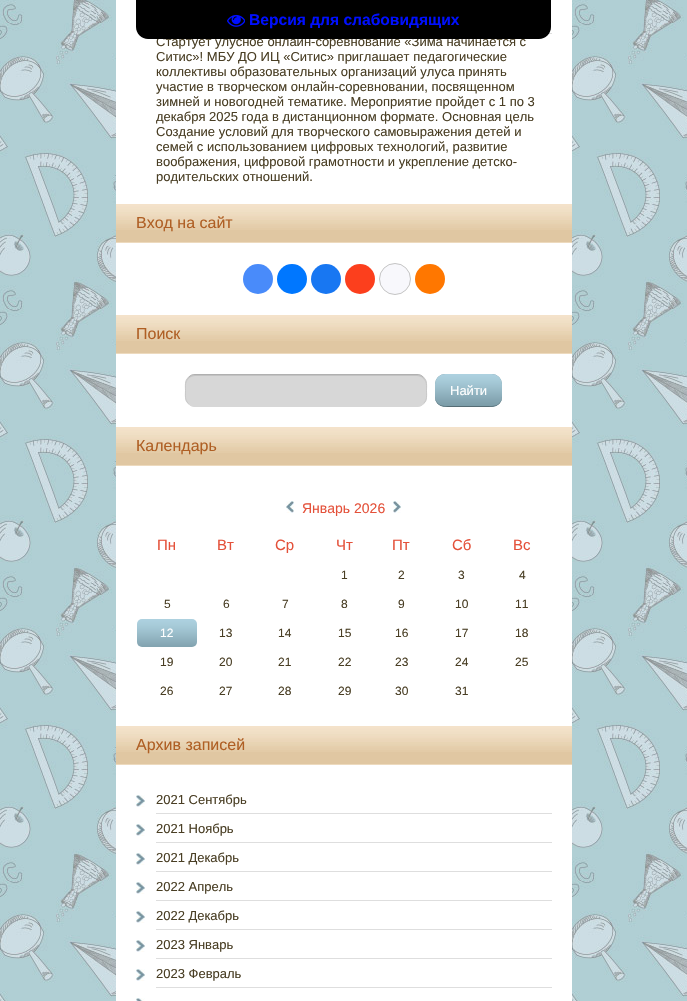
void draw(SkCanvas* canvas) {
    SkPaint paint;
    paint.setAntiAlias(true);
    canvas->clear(0xFFFFFFFF);
    canvas->drawImageRect(SkImages::DeferredFromEncodedData(SkData::MakeFromFileName("img1.png")), SkRect::MakeXYWH(0, 0, 687, 1001), SkSamplingOptions());
    paint.setColor(0xFFFFFFFF);
    canvas->drawRect(SkRect::MakeXYWH(116, 0, 456, 1001), paint);
    paint.setColor(0xFFDEDEDE);
    canvas->drawRect(SkRect::MakeXYWH(548, 33, 4, 1), paint);
    SkFont font1(fontMgr->matchFamilyStyle("Liberation Sans", SkFontStyle::Normal()), 13);
    font1.setSubpixel(true);
    paint.setColor(0xFF493E24);
    canvas->drawString("Стартует улусное онлайн-соревнование «Зима начинается с", 156, 46, font1, paint);
    paint.setColor(0xFF000000);
    canvas->drawPath(SkPathBuilder().moveTo(136, 0).lineTo(551, 0).lineTo(551, 27).cubicTo(551, 33.5f, 545.5f, 39, 539, 39).lineTo(148, 39).cubicTo(141.5f, 39, 136, 33.5f, 136, 27).close().detach(), paint);
    canvas->drawImageRect(SkImages::DeferredFromEncodedData(SkData::MakeFromFileName("img2.png")), SkRect::MakeXYWH(227, 14, 18, 13), SkSamplingOptions());
    SkFont font2(fontMgr->matchFamilyStyle("Liberation Sans", SkFontStyle::Bold()), 15.6f);
    font2.setSubpixel(true);
    paint.setColor(0xFF000FFF);
    canvas->drawString("Версия для слабовидящих", 249, 25, font2, paint);
    paint.setColor(0xFF493E24);
    canvas->drawString("Ситис»! МБУ ДО ИЦ «Ситис» приглашает педагогические", 156, 61, font1, paint);
    canvas->drawString("коллективы образовательных организаций улуса принять", 156, 76, font1, paint);
    canvas->drawString("участие в творческом онлайн-соревновании, посвященном", 156, 91, font1, paint);
    canvas->drawString("зимней и новогодней тематике. Мероприятие пройдет с 1 по 3", 156, 106, font1, paint);
    canvas->drawString("декабря 2025 года в дистанционном формате. Основная цель", 156, 121, font1, paint);
    canvas->drawString("Создание условий для творческого самовыражения детей и", 156, 136, font1, paint);
    canvas->drawString("семей с использованием цифровых технологий, развитие", 156, 151, font1, paint);
    canvas->drawString("воображения, цифровой грамотности и укрепление детско-", 156, 166, font1, paint);
    canvas->drawString("родительских отношений.", 156, 181, font1, paint);
    paint.setColor(0xFFE0C7A2);
    canvas->drawRect(SkRect::MakeXYWH(116, 230, 456, 12), paint);
    canvas->drawImageRect(SkImages::DeferredFromEncodedData(SkData::MakeFromFileName("img3.png")), SkRect::MakeXYWH(116, 204, 456, 26), SkSamplingOptions());
    paint.setColor(0xFFEDDABE);
    canvas->drawRect(SkRect::MakeXYWH(116, 242, 456, 1), paint);
    SkFont font3(fontMgr->matchFamilyStyle("Liberation Sans", SkFontStyle::Normal()), 16);
    font3.setSubpixel(true);
    paint.setColor(0xFFAF5F24);
    canvas->drawString("Вход на сайт", 136, 228, font3, paint);
    paint.setColor(0xFF498BFA);
    canvas->drawCircle(258, 279, 15, paint);
    paint.setColor(0xFF0077FF);
    canvas->drawCircle(292, 279, 15, paint);
    paint.setColor(0xFF1877F2);
    canvas->drawCircle(326, 279, 15, paint);
    paint.setColor(0xFFFC3F1D);
    canvas->drawCircle(360, 279, 15, paint);
    paint.setColor(0xFFF8F8FC);
    canvas->drawCircle(395, 279, 15.5f, paint);
    paint.setStyle(SkPaint::kStroke_Style);
    paint.setStrokeWidth(1);
    paint.setColor(0xFFC4C4C4);
    canvas->drawCircle(395, 279, 15.5f, paint);
    paint.setStyle(SkPaint::kFill_Style);
    paint.setColor(0xFFFF7700);
    canvas->drawCircle(430, 279, 15, paint);
    paint.setColor(0xFFE0C7A2);
    canvas->drawRect(SkRect::MakeXYWH(116, 341, 456, 12), paint);
    canvas->drawImageRect(SkImages::DeferredFromEncodedData(SkData::MakeFromFileName("img3.png")), SkRect::MakeXYWH(116, 315, 456, 26), SkSamplingOptions());
    paint.setColor(0xFFEDDABE);
    canvas->drawRect(SkRect::MakeXYWH(116, 353, 456, 1), paint);
    paint.setColor(0xFFAF5F24);
    canvas->drawString("Поиск", 136, 339, font3, paint);
    paint.setColor(0xFFD7D7D7);
    canvas->drawRoundRect(SkRect::MakeXYWH(185, 374, 242, 33), 10, 10, paint);
    paint.setColor(0xFFC2C2C2);
    canvas->drawPath(SkPathBuilder().moveTo(195, 376).lineTo(417, 376).cubicTo(422, 376, 426, 380, 426, 385).lineTo(426, 384).cubicTo(426, 379, 422, 375, 417, 375).lineTo(195, 375).cubicTo(190, 375, 186, 379, 186, 384).lineTo(186, 385).cubicTo(186, 380, 190, 376, 195, 376).close().detach(), paint);
    paint.setStyle(SkPaint::kStroke_Style);
    paint.setColor(0xFFB0B0B0);
    canvas->drawPath(SkPathBuilder().moveTo(188.5f, 377.5f).cubicTo(190, 375.5f, 192.5f, 374.5f, 195, 374.5f).lineTo(417, 374.5f).cubicTo(419.5f, 374.5f, 422, 375.5f, 423.5f, 377.5f).detach(), paint);
    paint.setColor(0xFFC8C8C8);
    canvas->drawPath(SkPathBuilder().moveTo(423.5f, 377.5f).cubicTo(427.5f, 381, 426.5f, 386, 426.5f, 390.5f).cubicTo(426.5f, 395, 427.5f, 400, 423.5f, 403.5f).detach(), paint);
    paint.setColor(0xFFD7D7D7);
    canvas->drawPath(SkPathBuilder().moveTo(423.5f, 403.5f).cubicTo(422, 405.5f, 419.5f, 406.5f, 417, 406.5f).lineTo(195, 406.5f).cubicTo(192.5f, 406.5f, 190, 405.5f, 188.5f, 403.5f).detach(), paint);
    paint.setColor(0xFFC8C8C8);
    canvas->drawPath(SkPathBuilder().moveTo(188.5f, 403.5f).cubicTo(184.5f, 400, 185.5f, 395, 185.5f, 390.5f).cubicTo(185.5f, 386, 184.5f, 381, 188.5f, 377.5f).detach(), paint);
    paint.setStyle(SkPaint::kFill_Style);
    paint.setColor(0xFF7394A0);
    canvas->drawRoundRect(SkRect::MakeXYWH(435, 374, 67, 33), 10, 10, paint);
    canvas->drawImageRect(SkImages::DeferredFromEncodedData(SkData::MakeFromFileName("img4.png")), SkRect::MakeXYWH(435, 374, 67, 33), SkSamplingOptions());
    paint.setColor(0xFF566D75);
    canvas->drawPath(SkPathBuilder().moveTo(435, 396).cubicTo(435, 407, 444, 407, 453, 407).lineTo(484, 407).cubicTo(493, 407, 502, 407, 502, 396).cubicTo(502, 402, 498, 406, 492, 406).lineTo(445, 406).cubicTo(439, 406, 435, 402, 435, 396).close().detach(), paint);
    paint.setColor(0xFFFFFFFF);
    canvas->drawString("Найти", 450, 395, font1, paint);
    paint.setColor(0xFFE0C7A2);
    canvas->drawRect(SkRect::MakeXYWH(116, 453, 456, 12), paint);
    canvas->drawImageRect(SkImages::DeferredFromEncodedData(SkData::MakeFromFileName("img3.png")), SkRect::MakeXYWH(116, 427, 456, 26), SkSamplingOptions());
    paint.setColor(0xFFEDDABE);
    canvas->drawRect(SkRect::MakeXYWH(116, 465, 456, 1), paint);
    paint.setColor(0xFFAF5F24);
    canvas->drawString("Календарь", 136, 451, font3, paint);
    canvas->drawImageRect(SkImages::DeferredFromEncodedData(SkData::MakeFromFileName("img5.png")), SkRect::MakeXYWH(286, 501, 8, 12), SkSamplingOptions());
    SkFont font4(fontMgr->matchFamilyStyle("Liberation Sans", SkFontStyle::Normal()), 14);
    font4.setSubpixel(true);
    paint.setColor(0xFFE4513A);
    canvas->drawString("Январь 2026", 302, 513, font4, paint);
    canvas->drawImageRect(SkImages::DeferredFromEncodedData(SkData::MakeFromFileName("img6.png")), SkRect::MakeXYWH(393, 501, 8, 12), SkSamplingOptions());
    SkFont font5(fontMgr->matchFamilyStyle("Liberation Sans", SkFontStyle::Normal()), 15);
    font5.setSubpixel(true);
    canvas->drawString("Пн", 157, 550, font5, paint);
    canvas->drawString("Вт", 217, 550, font5, paint);
    canvas->drawString("Ср", 275, 550, font5, paint);
    canvas->drawString("Чт", 336, 550, font5, paint);
    canvas->drawString("Пт", 392, 550, font5, paint);
    canvas->drawString("Сб", 452, 550, font5, paint);
    canvas->drawString("Вс", 513, 550, font5, paint);
    SkFont font6(fontMgr->matchFamilyStyle("Liberation Sans", SkFontStyle::Normal()), 12);
    font6.setSubpixel(true);
    paint.setColor(0xFF493E24);
    canvas->drawString("1", 341, 579, font6, paint);
    canvas->drawString("2", 398, 579, font6, paint);
    canvas->drawString("3", 458, 579, font6, paint);
    canvas->drawString("4", 519, 579, font6, paint);
    canvas->drawString("5", 164, 608, font6, paint);
    canvas->drawString("6", 223, 608, font6, paint);
    canvas->drawString("7", 282, 608, font6, paint);
    canvas->drawString("8", 341, 608, font6, paint);
    canvas->drawString("9", 398, 608, font6, paint);
    canvas->drawString("10", 455, 608, font6, paint);
    canvas->drawString("11", 515, 608, font6, paint);
    canvas->drawImageRect(SkImages::DeferredFromEncodedData(SkData::MakeFromFileName("img7.png")), SkRect::MakeXYWH(137, 619, 60, 28), SkSamplingOptions());
    paint.setColor(0xFFFFFFFF);
    canvas->drawString("12", 160, 637, font6, paint);
    paint.setColor(0xFF493E24);
    canvas->drawString("13", 219, 637, font6, paint);
    canvas->drawString("14", 278, 637, font6, paint);
    canvas->drawString("15", 338, 637, font6, paint);
    canvas->drawString("16", 395, 637, font6, paint);
    canvas->drawString("17", 455, 637, font6, paint);
    canvas->drawString("18", 515, 637, font6, paint);
    canvas->drawString("19", 160, 666, font6, paint);
    canvas->drawString("20", 219, 666, font6, paint);
    canvas->drawString("21", 278, 666, font6, paint);
    canvas->drawString("22", 338, 666, font6, paint);
    canvas->drawString("23", 395, 666, font6, paint);
    canvas->drawString("24", 455, 666, font6, paint);
    canvas->drawString("25", 515, 666, font6, paint);
    canvas->drawString("26", 160, 695, font6, paint);
    canvas->drawString("27", 219, 695, font6, paint);
    canvas->drawString("28", 278, 695, font6, paint);
    canvas->drawString("29", 338, 695, font6, paint);
    canvas->drawString("30", 395, 695, font6, paint);
    canvas->drawString("31", 455, 695, font6, paint);
    paint.setColor(0xFFE0C7A2);
    canvas->drawRect(SkRect::MakeXYWH(116, 752, 456, 12), paint);
    canvas->drawImageRect(SkImages::DeferredFromEncodedData(SkData::MakeFromFileName("img3.png")), SkRect::MakeXYWH(116, 726, 456, 26), SkSamplingOptions());
    paint.setColor(0xFFEDDABE);
    canvas->drawRect(SkRect::MakeXYWH(116, 764, 456, 1), paint);
    paint.setColor(0xFFAF5F24);
    canvas->drawString("Архив записей", 136, 750, font3, paint);
    canvas->drawImageRect(SkImages::DeferredFromEncodedData(SkData::MakeFromFileName("img8.png")), SkRect::MakeXYWH(136, 795, 9, 12), SkSamplingOptions());
    paint.setColor(0xFF493E24);
    canvas->drawString("2021 Сентябрь", 156, 804, font1, paint);
    paint.setColor(0xFFDEDEDE);
    canvas->drawRect(SkRect::MakeXYWH(156, 813, 396, 1), paint);
    canvas->drawImageRect(SkImages::DeferredFromEncodedData(SkData::MakeFromFileName("img8.png")), SkRect::MakeXYWH(136, 824, 9, 12), SkSamplingOptions());
    paint.setColor(0xFF493E24);
    canvas->drawString("2021 Ноябрь", 156, 833, font1, paint);
    paint.setColor(0xFFDEDEDE);
    canvas->drawRect(SkRect::MakeXYWH(156, 842, 396, 1), paint);
    canvas->drawImageRect(SkImages::DeferredFromEncodedData(SkData::MakeFromFileName("img8.png")), SkRect::MakeXYWH(136, 853, 9, 12), SkSamplingOptions());
    paint.setColor(0xFF493E24);
    canvas->drawString("2021 Декабрь", 156, 862, font1, paint);
    paint.setColor(0xFFDEDEDE);
    canvas->drawRect(SkRect::MakeXYWH(156, 871, 396, 1), paint);
    canvas->drawImageRect(SkImages::DeferredFromEncodedData(SkData::MakeFromFileName("img8.png")), SkRect::MakeXYWH(136, 882, 9, 12), SkSamplingOptions());
    paint.setColor(0xFF493E24);
    canvas->drawString("2022 Апрель", 156, 891, font1, paint);
    paint.setColor(0xFFDEDEDE);
    canvas->drawRect(SkRect::MakeXYWH(156, 900, 396, 1), paint);
    canvas->drawImageRect(SkImages::DeferredFromEncodedData(SkData::MakeFromFileName("img8.png")), SkRect::MakeXYWH(136, 911, 9, 12), SkSamplingOptions());
    paint.setColor(0xFF493E24);
    canvas->drawString("2022 Декабрь", 156, 920, font1, paint);
    paint.setColor(0xFFDEDEDE);
    canvas->drawRect(SkRect::MakeXYWH(156, 929, 396, 1), paint);
    canvas->drawImageRect(SkImages::DeferredFromEncodedData(SkData::MakeFromFileName("img8.png")), SkRect::MakeXYWH(136, 940, 9, 12), SkSamplingOptions());
    paint.setColor(0xFF493E24);
    canvas->drawString("2023 Январь", 156, 949, font1, paint);
    paint.setColor(0xFFDEDEDE);
    canvas->drawRect(SkRect::MakeXYWH(156, 958, 396, 1), paint);
    canvas->drawImageRect(SkImages::DeferredFromEncodedData(SkData::MakeFromFileName("img8.png")), SkRect::MakeXYWH(136, 969, 9, 12), SkSamplingOptions());
    paint.setColor(0xFF493E24);
    canvas->drawString("2023 Февраль", 156, 978, font1, paint);
    paint.setColor(0xFFDEDEDE);
    canvas->drawRect(SkRect::MakeXYWH(156, 987, 396, 1), paint);
    canvas->drawImageRect(SkImages::DeferredFromEncodedData(SkData::MakeFromFileName("img9.png")), SkRect::MakeXYWH(136, 998, 9, 3), SkSamplingOptions());
}
